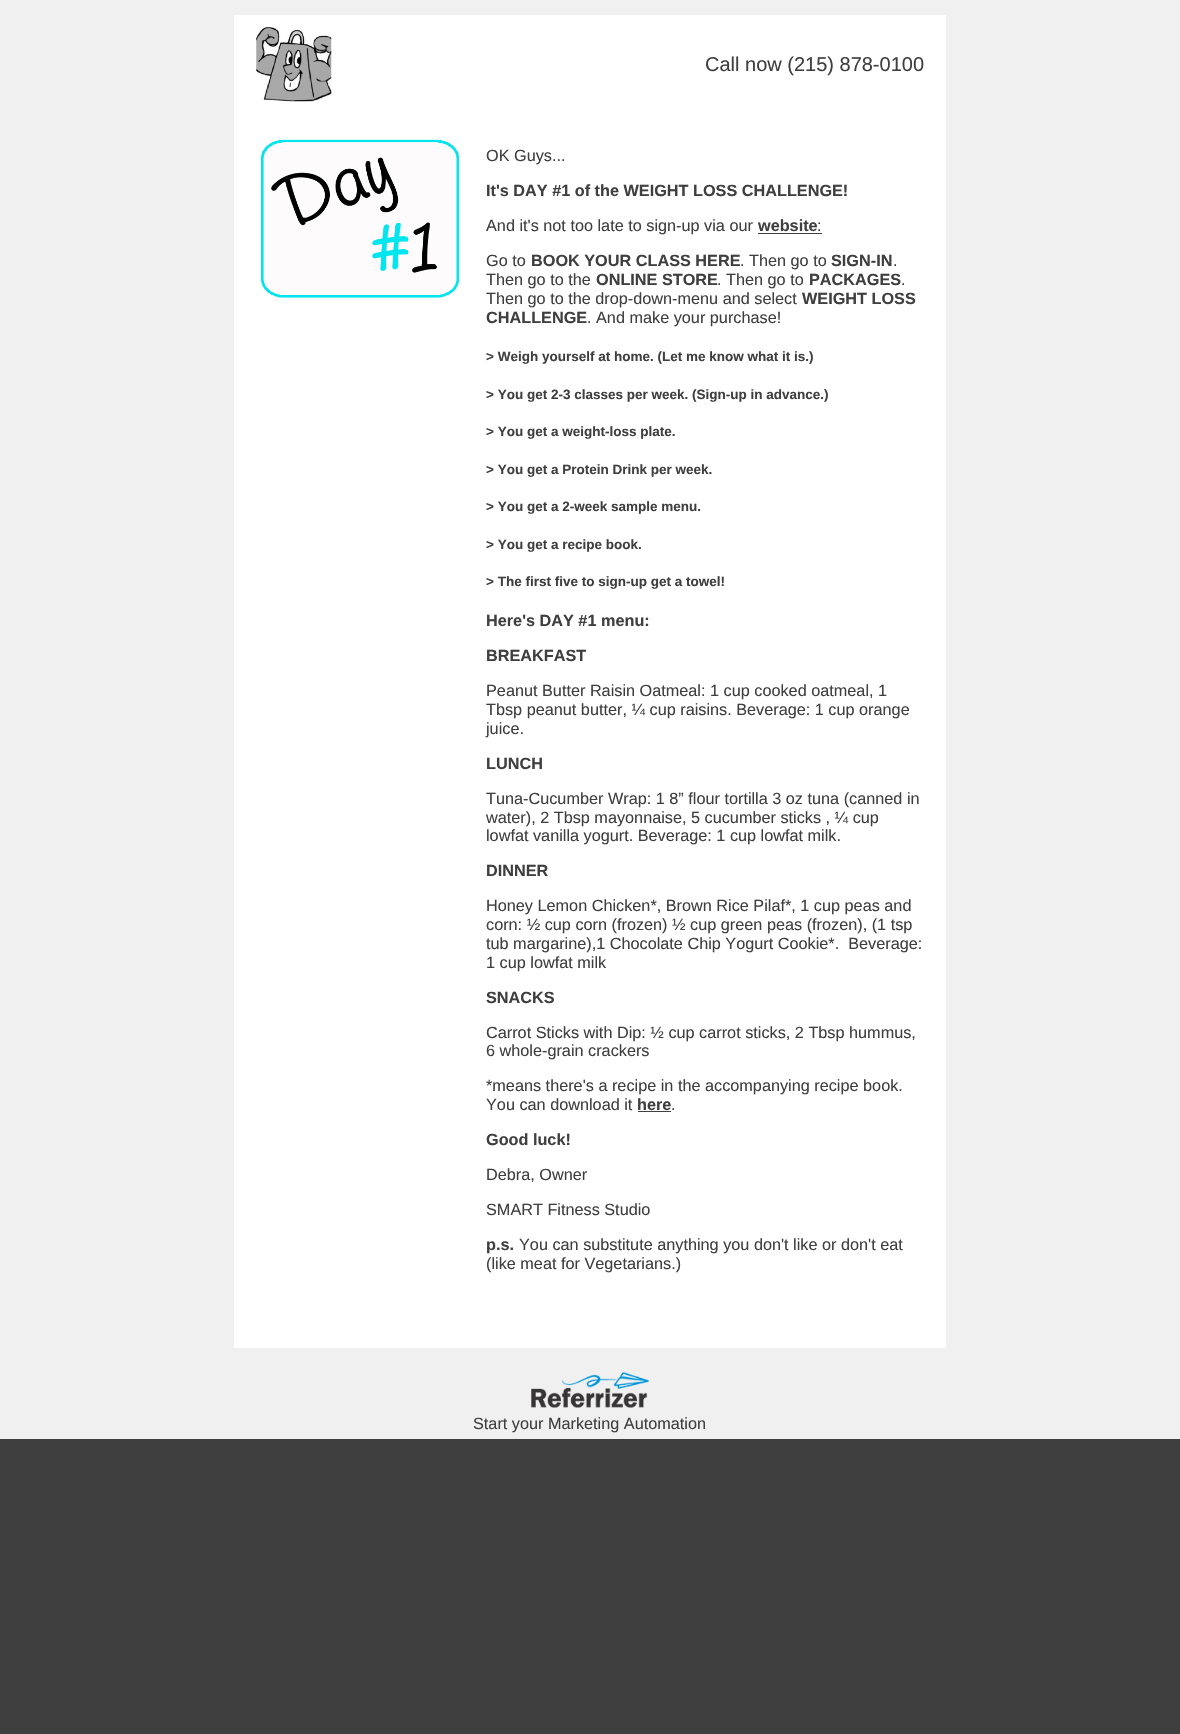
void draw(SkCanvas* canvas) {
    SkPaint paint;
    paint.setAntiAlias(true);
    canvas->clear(0xFF3F3F3F);
    paint.setColor(0xFFF0F0F0);
    canvas->drawRect(SkRect::MakeXYWH(0, 0, 1180, 1439), paint);
    paint.setColor(0xFFFFFFFF);
    canvas->drawRect(SkRect::MakeXYWH(234, 15, 712, 1333), paint);
    canvas->drawImageRect(SkImages::DeferredFromEncodedData(SkData::MakeFromFileName("img1.png")), SkRect::MakeXYWH(256, 27, 76, 75), SkSamplingOptions());
    SkFont font1(fontMgr->matchFamilyStyle("Liberation Sans", SkFontStyle::Normal()), 20);
    font1.setSubpixel(true);
    paint.setColor(0xFF3F3F3F);
    canvas->drawString("Call now (215) 878-0100", 705, 71, font1, paint);
    canvas->drawImageRect(SkImages::DeferredFromEncodedData(SkData::MakeFromFileName("img2.png")), SkRect::MakeXYWH(261, 139, 198, 159), SkSamplingOptions());
    SkFont font2(fontMgr->matchFamilyStyle("Liberation Sans", SkFontStyle::Normal()), 16.25f);
    font2.setSubpixel(true);
    canvas->drawString("OK Guys...", 486, 161, font2, paint);
    SkFont font3(fontMgr->matchFamilyStyle("Liberation Sans", SkFontStyle::Bold()), 16.25f);
    font3.setSubpixel(true);
    canvas->drawString("It's DAY #1 of the WEIGHT LOSS CHALLENGE!", 486, 196, font3, paint);
    canvas->drawString("And it's not too late to sign-up via our", 486, 231, font2, paint);
    canvas->drawString("website", 758, 231, font3, paint);
    canvas->drawString(":", 817, 231, font2, paint);
    canvas->drawRect(SkRect::MakeXYWH(758, 233, 64, 1), paint);
    canvas->drawString("Go to", 486, 266, font2, paint);
    canvas->drawString("BOOK YOUR CLASS HERE", 531, 266, font3, paint);
    canvas->drawString(". Then go to", 740, 266, font2, paint);
    canvas->drawString("SIGN-IN", 831, 266, font3, paint);
    canvas->drawString(".", 893, 266, font2, paint);
    canvas->drawString("Then go to the", 486, 285, font2, paint);
    canvas->drawString("ONLINE STORE", 596, 285, font3, paint);
    canvas->drawString(". Then go to", 717, 285, font2, paint);
    canvas->drawString("PACKAGES", 809, 285, font3, paint);
    canvas->drawString(".", 901, 285, font2, paint);
    canvas->drawString("Then go to the drop-down-menu and select", 486, 304, font2, paint);
    canvas->drawString("WEIGHT LOSS", 802, 304, font3, paint);
    canvas->drawString("CHALLENGE", 486, 323, font3, paint);
    canvas->drawString(". And make your purchase!", 587, 323, font2, paint);
    SkFont font4(fontMgr->matchFamilyStyle("Liberation Sans", SkFontStyle::Bold()), 13.5f);
    font4.setSubpixel(true);
    canvas->drawString("> Weigh yourself at home. (Let me know what it is.)", 486, 361, font4, paint);
    canvas->drawString("> You get 2-3 classes per week. (Sign-up in advance.)", 486, 399, font4, paint);
    canvas->drawString("> You get a weight-loss plate.", 486, 436, font4, paint);
    canvas->drawString("> You get a Protein Drink per week.", 486, 474, font4, paint);
    canvas->drawString("> You get a 2-week sample menu.", 486, 511, font4, paint);
    canvas->drawString("> You get a recipe book.", 486, 549, font4, paint);
    canvas->drawString("> The first five to sign-up get a towel!", 486, 586, font4, paint);
    canvas->drawString("Here's DAY #1 menu:", 486, 626, font3, paint);
    canvas->drawString("BREAKFAST", 486, 661, font3, paint);
    canvas->drawString("Peanut Butter Raisin Oatmeal: 1 cup cooked oatmeal, 1", 486, 696, font2, paint);
    canvas->drawString("Tbsp peanut butter, ¼ cup raisins. Beverage: 1 cup orange", 486, 715, font2, paint);
    canvas->drawString("juice.", 486, 734, font2, paint);
    canvas->drawString("LUNCH", 486, 769, font3, paint);
    canvas->drawString("Tuna-Cucumber Wrap: 1 8” flour tortilla 3 oz tuna (canned in", 486, 804, font2, paint);
    canvas->drawString("water), 2 Tbsp mayonnaise, 5 cucumber sticks , ¼ cup", 486, 823, font2, paint);
    canvas->drawString("lowfat vanilla yogurt. Beverage: 1 cup lowfat milk.", 486, 841, font2, paint);
    canvas->drawString("DINNER", 486, 876, font3, paint);
    canvas->drawString("Honey Lemon Chicken*, Brown Rice Pilaf*, 1 cup peas and", 486, 911, font2, paint);
    canvas->drawString("corn: ½ cup corn (frozen) ½ cup green peas (frozen), (1 tsp", 486, 930, font2, paint);
    canvas->drawString("tub margarine),1 Chocolate Chip Yogurt Cookie*.  Beverage:", 486, 949, font2, paint);
    canvas->drawString("1 cup lowfat milk", 486, 968, font2, paint);
    canvas->drawString("SNACKS", 486, 1003, font3, paint);
    canvas->drawString("Carrot Sticks with Dip: ½ cup carrot sticks, 2 Tbsp hummus,", 486, 1038, font2, paint);
    canvas->drawString("6 whole-grain crackers", 486, 1056, font2, paint);
    canvas->drawString("*means there's a recipe in the accompanying recipe book.", 486, 1091, font2, paint);
    canvas->drawString("You can download it", 486, 1110, font2, paint);
    canvas->drawString("here", 637, 1110, font3, paint);
    canvas->drawRect(SkRect::MakeXYWH(638, 1111, 33, 1), paint);
    canvas->drawString(".", 671, 1110, font2, paint);
    canvas->drawString("Good luck!", 486, 1145, font3, paint);
    canvas->drawString("Debra, Owner", 486, 1180, font2, paint);
    canvas->drawString("SMART Fitness Studio", 486, 1215, font2, paint);
    canvas->drawString("p.s.", 486, 1250, font3, paint);
    canvas->drawString("You can substitute anything you don't like or don't eat", 519, 1250, font2, paint);
    canvas->drawString("(like meat for Vegetarians.)", 486, 1269, font2, paint);
    canvas->drawImageRect(SkImages::DeferredFromEncodedData(SkData::MakeFromFileName("img3.png")), SkRect::MakeXYWH(531, 1372, 118, 36), SkSamplingOptions());
    canvas->drawString("Start your Marketing Automation", 473, 1429, font2, paint);
}
